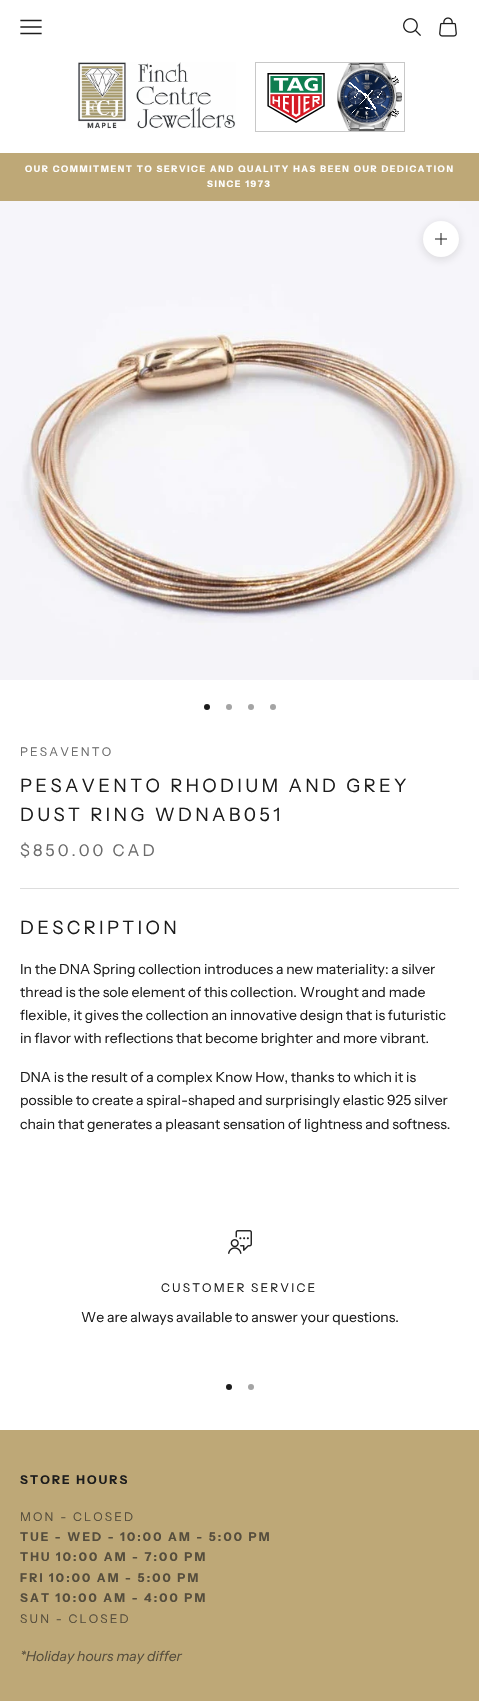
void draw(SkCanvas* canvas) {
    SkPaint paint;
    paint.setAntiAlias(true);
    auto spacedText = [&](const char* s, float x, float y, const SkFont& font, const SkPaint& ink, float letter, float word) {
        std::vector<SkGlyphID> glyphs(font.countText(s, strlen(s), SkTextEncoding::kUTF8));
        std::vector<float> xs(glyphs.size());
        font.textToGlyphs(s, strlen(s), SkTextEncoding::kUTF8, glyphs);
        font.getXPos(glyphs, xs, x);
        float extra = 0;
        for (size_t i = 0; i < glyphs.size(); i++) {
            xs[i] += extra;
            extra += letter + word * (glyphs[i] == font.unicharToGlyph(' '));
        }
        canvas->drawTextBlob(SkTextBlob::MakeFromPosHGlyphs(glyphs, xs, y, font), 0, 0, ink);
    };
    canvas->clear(0xFFFFFFFF);
    paint.setStyle(SkPaint::kStroke_Style);
    paint.setStrokeWidth(1.3f);
    paint.setStrokeCap(SkPaint::kSquare_Cap);
    paint.setColor(0xFF1C1C1C);
    canvas->drawPath(SkPathBuilder().moveTo(21, 33.5f).lineTo(41, 33.5f).moveTo(21, 27).lineTo(41, 27).moveTo(21, 20.5f).lineTo(41, 20.5f).detach(), paint);
    canvas->drawImageRect(SkImages::DeferredFromEncodedData(SkData::MakeFromFileName("img1.png")), SkRect::MakeXYWH(403, 18, 18, 18), SkSamplingOptions());
    canvas->drawImageRect(SkImages::DeferredFromEncodedData(SkData::MakeFromFileName("img2.png")), SkRect::MakeXYWH(439, 17, 18, 20), SkSamplingOptions());
    canvas->drawImageRect(SkImages::DeferredFromEncodedData(SkData::MakeFromFileName("img3.png")), SkRect::MakeXYWH(78, 62, 158, 67), SkSamplingOptions());
    canvas->drawImageRect(SkImages::DeferredFromEncodedData(SkData::MakeFromFileName("img4.png")), SkRect::MakeXYWH(255, 62, 150, 70), SkSamplingOptions());
    paint.setStyle(SkPaint::kFill_Style);
    paint.setColor(0xFFBEA877);
    canvas->drawRect(SkRect::MakeXYWH(0, 153, 479, 48), paint);
    SkFont font1(fontMgr->matchFamilyStyle("Instrument Sans", SkFontStyle::Bold()), 9);
    font1.setSubpixel(true);
    paint.setColor(0xFFFFFFFF);
    spacedText("OUR COMMITMENT TO SERVICE AND QUALITY HAS BEEN OUR DEDICATION", 25, 172, font1, paint, 1.62f, 0);
    spacedText("SINCE 1973", 207, 187, font1, paint, 1.62f, 0);
    canvas->drawImageRect(SkImages::DeferredFromEncodedData(SkData::MakeFromFileName("img5.png")), SkRect::MakeXYWH(0, 201, 479, 479), SkSamplingOptions());
    paint.setColor(0x261C1C1C);
    paint.setMaskFilter(SkMaskFilter::MakeBlur(kNormal_SkBlurStyle, 5));
    canvas->drawRoundRect(SkRect::MakeXYWH(423, 223, 36, 36), 18, 18, paint);
    paint.setMaskFilter(nullptr);
    paint.setColor(0xFFFFFFFF);
    canvas->drawCircle(441, 239, 18, paint);
    paint.setStyle(SkPaint::kStroke_Style);
    paint.setStrokeWidth(1);
    paint.setStrokeCap(SkPaint::kButt_Cap);
    paint.setColor(0xFF1C1C1C);
    canvas->drawPath(SkPathBuilder().moveTo(441, 233).lineTo(441, 245).moveTo(435, 239).lineTo(447, 239).detach(), paint);
    paint.setStyle(SkPaint::kFill_Style);
    canvas->drawCircle(207, 707, 3, paint);
    paint.setColor(0xFFA4A4A4);
    canvas->drawCircle(229, 707, 3, paint);
    canvas->drawCircle(251, 707, 3, paint);
    canvas->drawCircle(273, 707, 3, paint);
    SkFont font2(fontMgr->matchFamilyStyle("Instrument Sans", SkFontStyle::Normal()), 12);
    font2.setSubpixel(true);
    paint.setColor(0xFF6B6B6B);
    spacedText("PESAVENTO", 20, 756, font2, paint, 2.15f, 0);
    SkFont font3(fontMgr->matchFamilyStyle("Instrument Sans", SkFontStyle::Normal()), 18.4f);
    font3.setSubpixel(true);
    paint.setColor(0xFF1C1C1C);
    spacedText("PESAVENTO RHODIUM AND GREY", 20, 792, font3, paint, 3.3f, 0);
    spacedText("DUST RING WDNAB051", 20, 821, font3, paint, 3.3f, 0);
    SkFont font4(fontMgr->matchFamilyStyle("Instrument Sans", SkFontStyle::Normal()), 16.25f);
    font4.setSubpixel(true);
    paint.setColor(0xFF6B6B6B);
    spacedText("$850.00 CAD", 20, 856, font4, paint, 3, 0);
    paint.setColor(0xFFDDDDDD);
    canvas->drawRect(SkRect::MakeXYWH(20, 888, 439, 1), paint);
    paint.setColor(0xFF1C1C1C);
    spacedText("DESCRIPTION", 20, 934, font3, paint, 3.3f, 0);
    SkFont font5(fontMgr->matchFamilyStyle("Instrument Sans", SkFontStyle::Normal()), 14);
    font5.setSubpixel(true);
    canvas->drawString("In the DNA Spring collection introduces a new materiality: a silver", 20, 974, font5, paint);
    canvas->drawString("thread is the sole element of this collection. Wrought and made", 20, 997, font5, paint);
    canvas->drawString("flexible, it gives the collection an innovative design that is futuristic", 20, 1020, font5, paint);
    canvas->drawString("in flavor with reflections that become brighter and more vibrant.", 20, 1043, font5, paint);
    canvas->drawString("DNA is the result of a complex Know How, thanks to which it is", 20, 1082, font5, paint);
    canvas->drawString("possible to create a spiral-shaped and surprisingly elastic 925 silver", 20, 1105, font5, paint);
    canvas->drawString("chain that generates a pleasant sensation of lightness and softness.", 20, 1129, font5, paint);
    canvas->drawImageRect(SkImages::DeferredFromEncodedData(SkData::MakeFromFileName("img6.png")), SkRect::MakeXYWH(228, 1230, 24, 24), SkSamplingOptions());
    spacedText("CUSTOMER SERVICE", 161, 1292, font2, paint, 2.15f, 0);
    canvas->drawString("We are always available to answer your questions.", 81, 1322, font5, paint);
    canvas->drawCircle(229, 1387, 3, paint);
    paint.setColor(0xFFA4A4A4);
    canvas->drawCircle(251, 1387, 3, paint);
    paint.setColor(0xFFBEA877);
    canvas->drawRect(SkRect::MakeXYWH(0, 1430, 479, 271), paint);
    SkFont font6(fontMgr->matchFamilyStyle("Instrument Sans", SkFontStyle::Bold()), 12);
    font6.setSubpixel(true);
    paint.setColor(0xFF1C1C1C);
    spacedText("STORE HOURS", 20, 1484, font6, paint, 2.15f, 0);
    paint.setColor(0xFF554D3C);
    spacedText("MON - CLOSED", 20, 1521, font2, paint, 2.15f, 0);
    spacedText("TUE - WED - 10:00 AM - 5:00 PM", 20, 1541, font6, paint, 2.15f, 0);
    spacedText("THU 10:00 AM - 7:00 PM", 20, 1561, font6, paint, 2.15f, 0);
    spacedText("FRI 10:00 AM - 5:00 PM", 20, 1582, font6, paint, 2.15f, 0);
    spacedText("SAT 10:00 AM - 4:00 PM", 20, 1602, font6, paint, 2.15f, 0);
    spacedText("SUN - CLOSED", 20, 1623, font2, paint, 2.15f, 0);
    SkFont font7(fontMgr->matchFamilyStyle("Instrument Sans", SkFontStyle::Italic()), 14);
    font7.setSubpixel(true);
    canvas->drawString("*Holiday hours may differ", 20, 1661, font7, paint);
}
